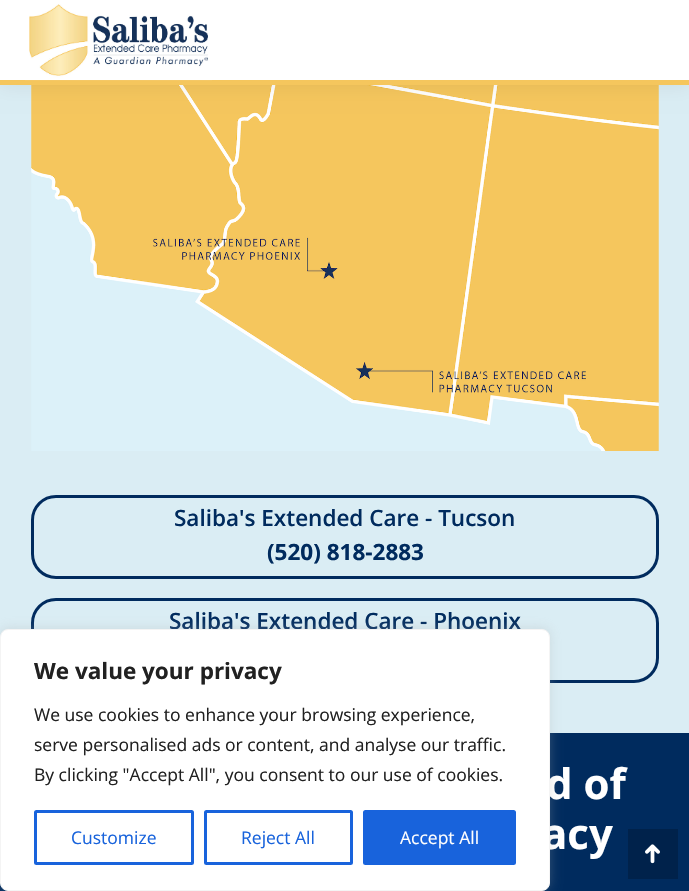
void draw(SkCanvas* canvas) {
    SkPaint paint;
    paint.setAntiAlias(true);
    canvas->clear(0xFFDAEDF4);
    canvas->drawImageRect(SkImages::DeferredFromEncodedData(SkData::MakeFromFileName("img2.png")), SkRect::MakeXYWH(31, 85, 628, 366), SkSamplingOptions());
    paint.setColor(0x12000000);
    paint.setMaskFilter(SkMaskFilter::MakeBlur(kNormal_SkBlurStyle, 9.5f));
    canvas->drawRect(SkRect::MakeXYWH(-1, -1, 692, 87), paint);
    paint.setMaskFilter(nullptr);
    paint.setColor(0xFFFFFFFF);
    canvas->drawRect(SkRect::MakeXYWH(0, 0, 689, 80), paint);
    paint.setColor(0xFFF5C65D);
    canvas->drawRect(SkRect::MakeXYWH(0, 80, 689, 5), paint);
    canvas->drawImageRect(SkImages::DeferredFromEncodedData(SkData::MakeFromFileName("img1.png")), SkRect::MakeXYWH(25, 4, 187, 77), SkSamplingOptions());
    paint.setStyle(SkPaint::kStroke_Style);
    paint.setStrokeWidth(3);
    paint.setColor(0xFF002B5E);
    canvas->drawRoundRect(SkRect::MakeXYWH(32.5f, 496.5f, 625, 81), 23.5f, 23.5f, paint);
    SkFont font1(fontMgr->matchFamilyStyle("Open Sans", SkFontStyle(600, SkFontStyle::kNormal_Width, SkFontStyle::kUpright_Slant)), 22.5f);
    font1.setSubpixel(true);
    paint.setStyle(SkPaint::kFill_Style);
    canvas->drawString("Saliba's Extended Care - Tucson", 174, 526, font1, paint);
    SkFont font2(fontMgr->matchFamilyStyle("Open Sans", SkFontStyle::Bold()), 22.5f);
    font2.setSubpixel(true);
    canvas->drawString("(520) 818-2883", 267, 560, font2, paint);
    paint.setStyle(SkPaint::kStroke_Style);
    canvas->drawRoundRect(SkRect::MakeXYWH(32.5f, 599.5f, 625, 82), 23.5f, 23.5f, paint);
    paint.setStyle(SkPaint::kFill_Style);
    canvas->drawString("Saliba's Extended Care - Phoenix", 169, 629, font1, paint);
    canvas->drawRect(SkRect::MakeXYWH(0, 733, 689, 158), paint);
    SkFont font3(fontMgr->matchFamilyStyle("Open Sans", SkFontStyle::Bold()), 42);
    font3.setSubpixel(true);
    paint.setColor(0xFFFFFFFF);
    canvas->drawString("d of", 546, 799, font3, paint);
    canvas->drawString("acy", 542, 849, font3, paint);
    paint.setColor(0xFF00224B);
    canvas->drawRect(SkRect::MakeXYWH(628, 829, 50, 50), paint);
    canvas->drawImageRect(SkImages::DeferredFromEncodedData(SkData::MakeFromFileName("img3.png")), SkRect::MakeXYWH(645, 844, 15, 20), SkSamplingOptions());
    paint.setColor(0x4DACABAB);
    paint.setMaskFilter(SkMaskFilter::MakeBlur(kNormal_SkBlurStyle, 6));
    canvas->drawRoundRect(SkRect::MakeXYWH(0, 628, 550, 262), 8, 8, paint);
    paint.setMaskFilter(nullptr);
    paint.setColor(0xFFFFFFFF);
    canvas->drawRoundRect(SkRect::MakeXYWH(0.5f, 629.5f, 549, 261), 7.5f, 7.5f, paint);
    paint.setStyle(SkPaint::kStroke_Style);
    paint.setStrokeWidth(1);
    paint.setColor(0xFFF4F4F4);
    canvas->drawRoundRect(SkRect::MakeXYWH(0.5f, 629.5f, 549, 261), 7.5f, 7.5f, paint);
    paint.setStyle(SkPaint::kFill_Style);
    paint.setColor(0xFF212121);
    canvas->drawString("We value your privacy", 34, 679, font2, paint);
    SkFont font4(fontMgr->matchFamilyStyle("Open Sans", SkFontStyle::Normal()), 17.5f);
    font4.setSubpixel(true);
    canvas->drawString("We use cookies to enhance your browsing experience,", 34, 721, font4, paint);
    canvas->drawString("serve personalised ads or content, and analyse our traffic.", 34, 751, font4, paint);
    canvas->drawString("By clicking \"Accept All\", you consent to our use of cookies.", 34, 781, font4, paint);
    paint.setStyle(SkPaint::kStroke_Style);
    paint.setStrokeWidth(3);
    paint.setColor(0xFF1863DC);
    canvas->drawRoundRect(SkRect::MakeXYWH(35.5f, 811.5f, 157, 52), 1, 1, paint);
    paint.setStyle(SkPaint::kFill_Style);
    canvas->drawString("Customize", 71, 844, font4, paint);
    paint.setStyle(SkPaint::kStroke_Style);
    canvas->drawRoundRect(SkRect::MakeXYWH(205.5f, 811.5f, 146, 52), 1, 1, paint);
    paint.setStyle(SkPaint::kFill_Style);
    canvas->drawString("Reject All", 241, 844, font4, paint);
    canvas->drawRoundRect(SkRect::MakeXYWH(364.5f, 811.5f, 150, 52), 1, 1, paint);
    paint.setStyle(SkPaint::kStroke_Style);
    canvas->drawRoundRect(SkRect::MakeXYWH(364.5f, 811.5f, 150, 52), 1, 1, paint);
    paint.setStyle(SkPaint::kFill_Style);
    paint.setColor(0xFFFFFFFF);
    canvas->drawString("Accept All", 400, 844, font4, paint);
}
